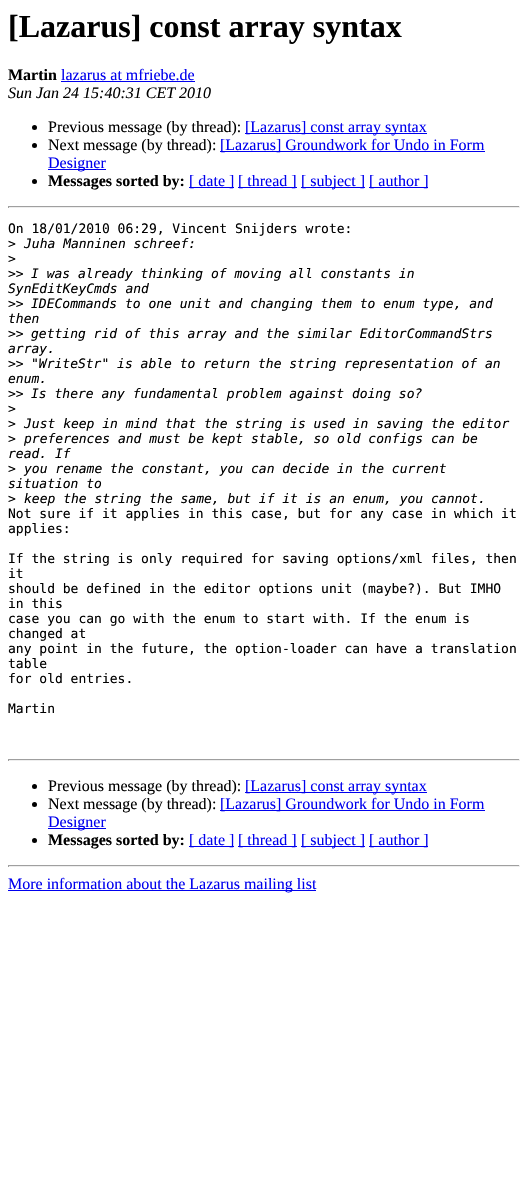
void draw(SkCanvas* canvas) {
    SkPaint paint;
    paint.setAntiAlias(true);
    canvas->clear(0xFFFFFFFF);
    SkFont font1(fontMgr->matchFamilyStyle("Liberation Serif", SkFontStyle::Bold()), 32);
    font1.setSubpixel(true);
    paint.setColor(0xFF000000);
    canvas->drawString("[Lazarus] const array syntax", 8, 37, font1, paint);
    SkFont font2(fontMgr->matchFamilyStyle("Liberation Serif", SkFontStyle::Bold()), 16);
    font2.setSubpixel(true);
    canvas->drawString("Martin", 8, 80, font2, paint);
    SkFont font3(fontMgr->matchFamilyStyle("Liberation Serif", SkFontStyle::Normal()), 16);
    font3.setSubpixel(true);
    paint.setColor(0xFF0000EE);
    canvas->drawString("lazarus at mfriebe.de", 61, 80, font3, paint);
    canvas->drawRect(SkRect::MakeXYWH(61, 81, 134, 1), paint);
    SkFont font4(fontMgr->matchFamilyStyle("Liberation Serif", SkFontStyle::Italic()), 16);
    font4.setSubpixel(true);
    paint.setColor(0xFF000000);
    canvas->drawString("Sun Jan 24 15:40:31 CET 2010", 8, 98, font4, paint);
    canvas->drawCircle(34.5f, 127.5f, 2.5f, paint);
    canvas->drawString("Previous message (by thread):", 48, 132, font3, paint);
    paint.setColor(0xFF0000EE);
    canvas->drawRect(SkRect::MakeXYWH(245, 133, 182, 1), paint);
    canvas->drawString("[Lazarus] const array syntax", 245, 132, font3, paint);
    paint.setColor(0xFF000000);
    canvas->drawCircle(34.5f, 145.5f, 2.5f, paint);
    canvas->drawString("Next message (by thread):", 48, 150, font3, paint);
    paint.setColor(0xFF0000EE);
    canvas->drawRect(SkRect::MakeXYWH(220, 151, 265, 1), paint);
    canvas->drawString("[Lazarus] Groundwork for Undo in Form", 220, 150, font3, paint);
    canvas->drawRect(SkRect::MakeXYWH(48, 169, 58, 1), paint);
    canvas->drawString("Designer", 48, 168, font3, paint);
    paint.setColor(0xFF000000);
    canvas->drawCircle(34.5f, 181.5f, 2.5f, paint);
    canvas->drawString("Messages sorted by:", 48, 186, font2, paint);
    paint.setColor(0xFF0000EE);
    canvas->drawRect(SkRect::MakeXYWH(189, 187, 45, 1), paint);
    canvas->drawString("[ date ]", 189, 186, font3, paint);
    canvas->drawRect(SkRect::MakeXYWH(238, 187, 59, 1), paint);
    canvas->drawString("[ thread ]", 238, 186, font3, paint);
    canvas->drawRect(SkRect::MakeXYWH(301, 187, 64, 1), paint);
    canvas->drawString("[ subject ]", 301, 186, font3, paint);
    canvas->drawRect(SkRect::MakeXYWH(369, 187, 59, 1), paint);
    canvas->drawString("[ author ]", 369, 186, font3, paint);
    paint.setColor(0xFF9F9F9F);
    canvas->drawRect(SkRect::MakeXYWH(8, 206, 512, 1), paint);
    paint.setColor(0xFFEEEEEE);
    canvas->drawRect(SkRect::MakeXYWH(519, 206, 1, 2), paint);
    canvas->drawRect(SkRect::MakeXYWH(8, 207, 512, 1), paint);
    paint.setColor(0xFF9F9F9F);
    canvas->drawRect(SkRect::MakeXYWH(8, 206, 1, 2), paint);
    SkFont font5(fontMgr->matchFamilyStyle("DejaVu Sans Mono", SkFontStyle::Normal()), 13);
    font5.setSubpixel(true);
    paint.setColor(0xFF000000);
    canvas->drawString("On 18/01/2010 06:29, Vincent Snijders wrote:", 8, 233, font5, paint);
    canvas->drawString(">", 8, 248, font5, paint);
    SkFont font6(fontMgr->matchFamilyStyle("DejaVu Sans Mono", SkFontStyle::Italic()), 13);
    font6.setSubpixel(true);
    canvas->drawString("Juha Manninen schreef:", 24, 248, font6, paint);
    canvas->drawString(">", 8, 263, font5, paint);
    canvas->drawString(">>", 8, 278, font5, paint);
    canvas->drawString("I was already thinking of moving all constants in", 31, 278, font6, paint);
    canvas->drawString("SynEditKeyCmds and", 8, 293, font6, paint);
    canvas->drawString(">>", 8, 308, font5, paint);
    canvas->drawString("IDECommands to one unit and changing them to enum type, and", 31, 308, font6, paint);
    canvas->drawString("then", 8, 323, font6, paint);
    canvas->drawString(">>", 8, 338, font5, paint);
    canvas->drawString("getting rid of this array and the similar EditorCommandStrs", 31, 338, font6, paint);
    canvas->drawString("array.", 8, 353, font6, paint);
    canvas->drawString(">>", 8, 368, font5, paint);
    canvas->drawString("\"WriteStr\" is able to return the string representation of an", 31, 368, font6, paint);
    canvas->drawString("enum.", 8, 383, font6, paint);
    canvas->drawString(">>", 8, 398, font5, paint);
    canvas->drawString("Is there any fundamental problem against doing so?", 31, 398, font6, paint);
    canvas->drawString(">", 8, 413, font5, paint);
    canvas->drawString(">", 8, 428, font5, paint);
    canvas->drawString("Just keep in mind that the string is used in saving the editor", 24, 428, font6, paint);
    canvas->drawString(">", 8, 443, font5, paint);
    canvas->drawString("preferences and must be kept stable, so old configs can be", 24, 443, font6, paint);
    canvas->drawString("read. If", 8, 458, font6, paint);
    canvas->drawString(">", 8, 473, font5, paint);
    canvas->drawString("you rename the constant, you can decide in the current", 24, 473, font6, paint);
    canvas->drawString("situation to", 8, 488, font6, paint);
    canvas->drawString(">", 8, 503, font5, paint);
    canvas->drawString("keep the string the same, but if it is an enum, you cannot.", 24, 503, font6, paint);
    canvas->drawString("Not sure if it applies in this case, but for any case in which it", 8, 518, font5, paint);
    canvas->drawString("applies:", 8, 533, font5, paint);
    canvas->drawString("If the string is only required for saving options/xml files, then", 8, 563, font5, paint);
    canvas->drawString("it", 8, 578, font5, paint);
    canvas->drawString("should be defined in the editor options unit (maybe?). But IMHO", 8, 593, font5, paint);
    canvas->drawString("in this", 8, 608, font5, paint);
    canvas->drawString("case you can go with the enum to start with. If the enum is", 8, 623, font5, paint);
    canvas->drawString("changed at", 8, 638, font5, paint);
    canvas->drawString("any point in the future, the option-loader can have a translation", 8, 653, font5, paint);
    canvas->drawString("table", 8, 668, font5, paint);
    canvas->drawString("for old entries.", 8, 683, font5, paint);
    canvas->drawString("Martin", 8, 713, font5, paint);
    paint.setColor(0xFF9F9F9F);
    canvas->drawRect(SkRect::MakeXYWH(8, 759, 512, 1), paint);
    paint.setColor(0xFFEEEEEE);
    canvas->drawRect(SkRect::MakeXYWH(519, 759, 1, 2), paint);
    canvas->drawRect(SkRect::MakeXYWH(8, 760, 512, 1), paint);
    paint.setColor(0xFF9F9F9F);
    canvas->drawRect(SkRect::MakeXYWH(8, 759, 1, 2), paint);
    paint.setColor(0xFF000000);
    canvas->drawCircle(34.5f, 786.5f, 2.5f, paint);
    canvas->drawString("Previous message (by thread):", 48, 791, font3, paint);
    paint.setColor(0xFF0000EE);
    canvas->drawRect(SkRect::MakeXYWH(245, 792, 182, 1), paint);
    canvas->drawString("[Lazarus] const array syntax", 245, 791, font3, paint);
    paint.setColor(0xFF000000);
    canvas->drawCircle(34.5f, 804.5f, 2.5f, paint);
    canvas->drawString("Next message (by thread):", 48, 809, font3, paint);
    paint.setColor(0xFF0000EE);
    canvas->drawRect(SkRect::MakeXYWH(220, 810, 265, 1), paint);
    canvas->drawString("[Lazarus] Groundwork for Undo in Form", 220, 809, font3, paint);
    canvas->drawRect(SkRect::MakeXYWH(48, 828, 58, 1), paint);
    canvas->drawString("Designer", 48, 827, font3, paint);
    paint.setColor(0xFF000000);
    canvas->drawCircle(34.5f, 840.5f, 2.5f, paint);
    canvas->drawString("Messages sorted by:", 48, 845, font2, paint);
    paint.setColor(0xFF0000EE);
    canvas->drawRect(SkRect::MakeXYWH(189, 846, 45, 1), paint);
    canvas->drawString("[ date ]", 189, 845, font3, paint);
    canvas->drawRect(SkRect::MakeXYWH(238, 846, 59, 1), paint);
    canvas->drawString("[ thread ]", 238, 845, font3, paint);
    canvas->drawRect(SkRect::MakeXYWH(301, 846, 64, 1), paint);
    canvas->drawString("[ subject ]", 301, 845, font3, paint);
    canvas->drawRect(SkRect::MakeXYWH(369, 846, 59, 1), paint);
    canvas->drawString("[ author ]", 369, 845, font3, paint);
    paint.setColor(0xFF9F9F9F);
    canvas->drawRect(SkRect::MakeXYWH(8, 865, 512, 1), paint);
    paint.setColor(0xFFEEEEEE);
    canvas->drawRect(SkRect::MakeXYWH(519, 865, 1, 2), paint);
    canvas->drawRect(SkRect::MakeXYWH(8, 866, 512, 1), paint);
    paint.setColor(0xFF9F9F9F);
    canvas->drawRect(SkRect::MakeXYWH(8, 865, 1, 2), paint);
    paint.setColor(0xFF0000EE);
    canvas->drawRect(SkRect::MakeXYWH(8, 890, 308, 1), paint);
    canvas->drawString("More information about the Lazarus mailing list", 8, 889, font3, paint);
}
